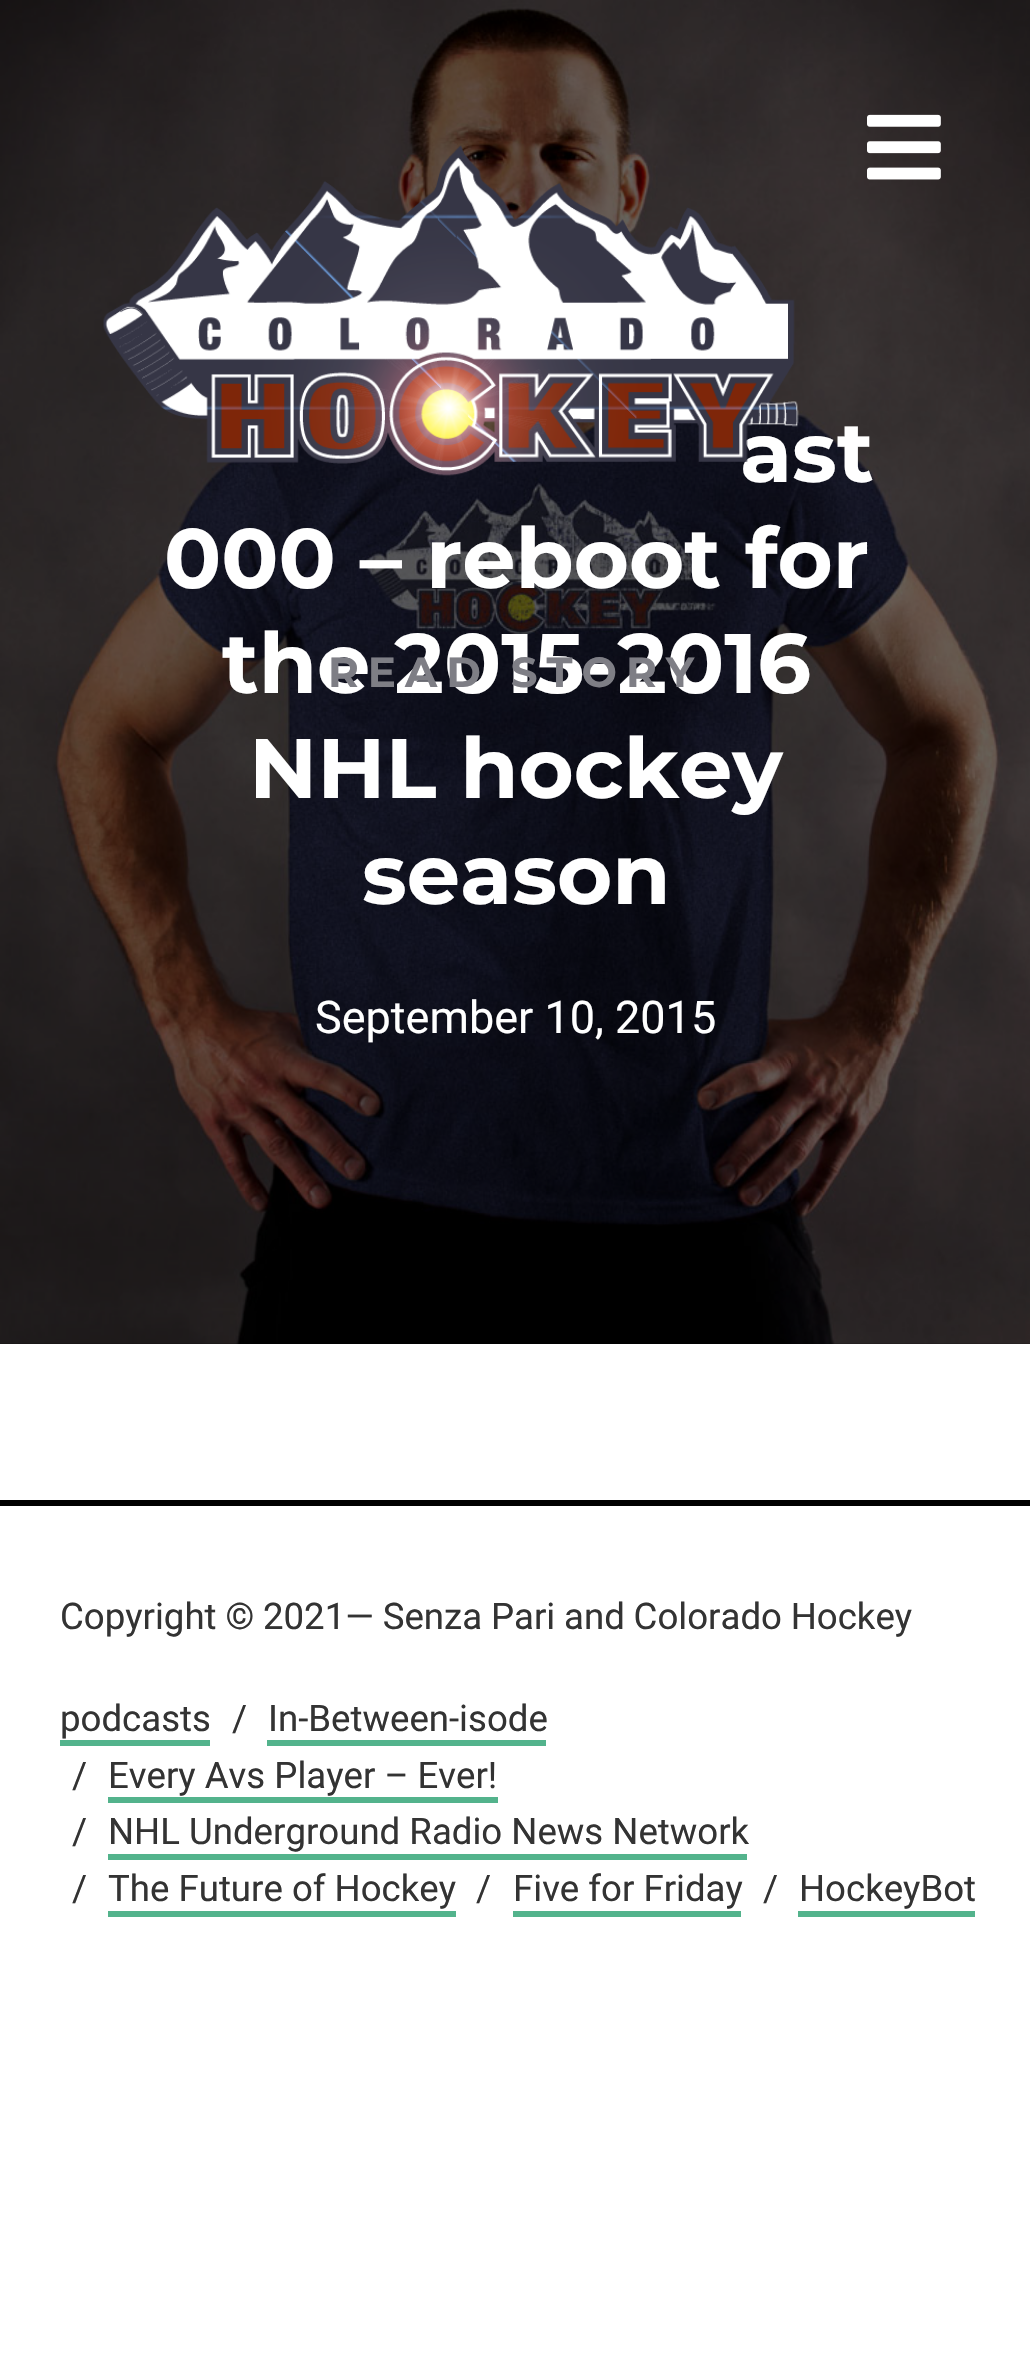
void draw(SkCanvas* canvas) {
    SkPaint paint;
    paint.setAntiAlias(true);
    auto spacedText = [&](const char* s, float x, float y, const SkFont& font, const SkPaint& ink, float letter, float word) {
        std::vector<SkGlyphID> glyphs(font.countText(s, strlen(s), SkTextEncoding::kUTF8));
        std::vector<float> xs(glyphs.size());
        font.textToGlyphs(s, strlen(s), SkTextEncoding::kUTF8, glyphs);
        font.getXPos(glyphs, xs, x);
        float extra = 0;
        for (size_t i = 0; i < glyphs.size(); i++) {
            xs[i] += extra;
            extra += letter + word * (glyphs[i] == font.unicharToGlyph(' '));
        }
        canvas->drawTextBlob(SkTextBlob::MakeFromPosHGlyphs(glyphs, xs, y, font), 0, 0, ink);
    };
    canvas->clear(0xFFFFFFFF);
    paint.setColor(0xFF000000);
    canvas->drawRect(SkRect::MakeXYWH(0, 0, 1030, 1344), paint);
    canvas->drawImageRect(SkImages::DeferredFromEncodedData(SkData::MakeFromFileName("img3.png")), SkRect::MakeXYWH(0, 0, 1030, 1344), SkSamplingOptions());
    SkFont font1(fontMgr->matchFamilyStyle("Montserrat", SkFontStyle::Bold()), 84.4f);
    font1.setSubpixel(true);
    paint.setColor(0xFFFFFFFF);
    canvas->drawString("ast", 740, 482, font1, paint);
    canvas->drawImageRect(SkImages::DeferredFromEncodedData(SkData::MakeFromFileName("img1.png")), SkRect::MakeXYWH(103, 145, 696, 331), SkSamplingOptions());
    canvas->drawImageRect(SkImages::DeferredFromEncodedData(SkData::MakeFromFileName("img2.png")), SkRect::MakeXYWH(867, 114, 74, 66), SkSamplingOptions());
    canvas->drawString("000 – reboot for", 164, 588, font1, paint);
    canvas->drawString("the 2015-2016", 222, 693, font1, paint);
    canvas->drawString("NHL hockey", 249, 798, font1, paint);
    canvas->drawString("season", 362, 904, font1, paint);
    SkFont font2(fontMgr->matchFamilyStyle("Montserrat", SkFontStyle::Bold()), 42);
    font2.setSubpixel(true);
    paint.setColor(0xFF7E7E85);
    spacedText("READ STORY", 328, 687, font2, paint, 9, 0);
    SkFont font3(fontMgr->matchFamilyStyle("Roboto", SkFontStyle::Normal()), 45);
    font3.setSubpixel(true);
    paint.setColor(0xFFFFFFFF);
    canvas->drawString("September 10, 2015", 315, 1033, font3, paint);
    paint.setColor(0xFF000000);
    canvas->drawRect(SkRect::MakeXYWH(0, 1500, 1030, 6), paint);
    SkFont font4(fontMgr->matchFamilyStyle("Roboto", SkFontStyle::Normal()), 36.6f);
    font4.setSubpixel(true);
    paint.setColor(0xFF333333);
    spacedText("Copyright © 2021— Senza Pari and Colorado Hockey", 60, 1629, font4, paint, 0, -0.25f);
    canvas->drawString("podcasts", 60, 1731, font4, paint);
    paint.setColor(0xFF53B38C);
    canvas->drawRect(SkRect::MakeXYWH(60, 1740, 150, 6), paint);
    paint.setColor(0xFF333333);
    canvas->drawString("/", 232, 1731, font4, paint);
    canvas->drawString("In-Between-isode", 268, 1731, font4, paint);
    paint.setColor(0xFF53B38C);
    canvas->drawRect(SkRect::MakeXYWH(267, 1740, 279, 6), paint);
    paint.setColor(0xFF333333);
    canvas->drawString("/", 72, 1788, font4, paint);
    canvas->drawString("Every Avs Player – Ever!", 108, 1788, font4, paint);
    paint.setColor(0xFF53B38C);
    canvas->drawRect(SkRect::MakeXYWH(108, 1797, 390, 6), paint);
    paint.setColor(0xFF333333);
    canvas->drawString("/", 72, 1844, font4, paint);
    canvas->drawString("NHL Underground Radio News Network", 108, 1844, font4, paint);
    paint.setColor(0xFF53B38C);
    canvas->drawRect(SkRect::MakeXYWH(108, 1854, 639, 6), paint);
    paint.setColor(0xFF333333);
    canvas->drawString("/", 72, 1901, font4, paint);
    canvas->drawString("The Future of Hockey", 108, 1901, font4, paint);
    paint.setColor(0xFF53B38C);
    canvas->drawRect(SkRect::MakeXYWH(108, 1911, 348, 6), paint);
    paint.setColor(0xFF333333);
    canvas->drawString("/", 476, 1901, font4, paint);
    canvas->drawString("Five for Friday", 513, 1901, font4, paint);
    paint.setColor(0xFF53B38C);
    canvas->drawRect(SkRect::MakeXYWH(513, 1911, 228, 6), paint);
    paint.setColor(0xFF333333);
    canvas->drawString("/", 763, 1901, font4, paint);
    canvas->drawString("HockeyBot", 799, 1901, font4, paint);
    paint.setColor(0xFF53B38C);
    canvas->drawRect(SkRect::MakeXYWH(798, 1911, 177, 6), paint);
}
